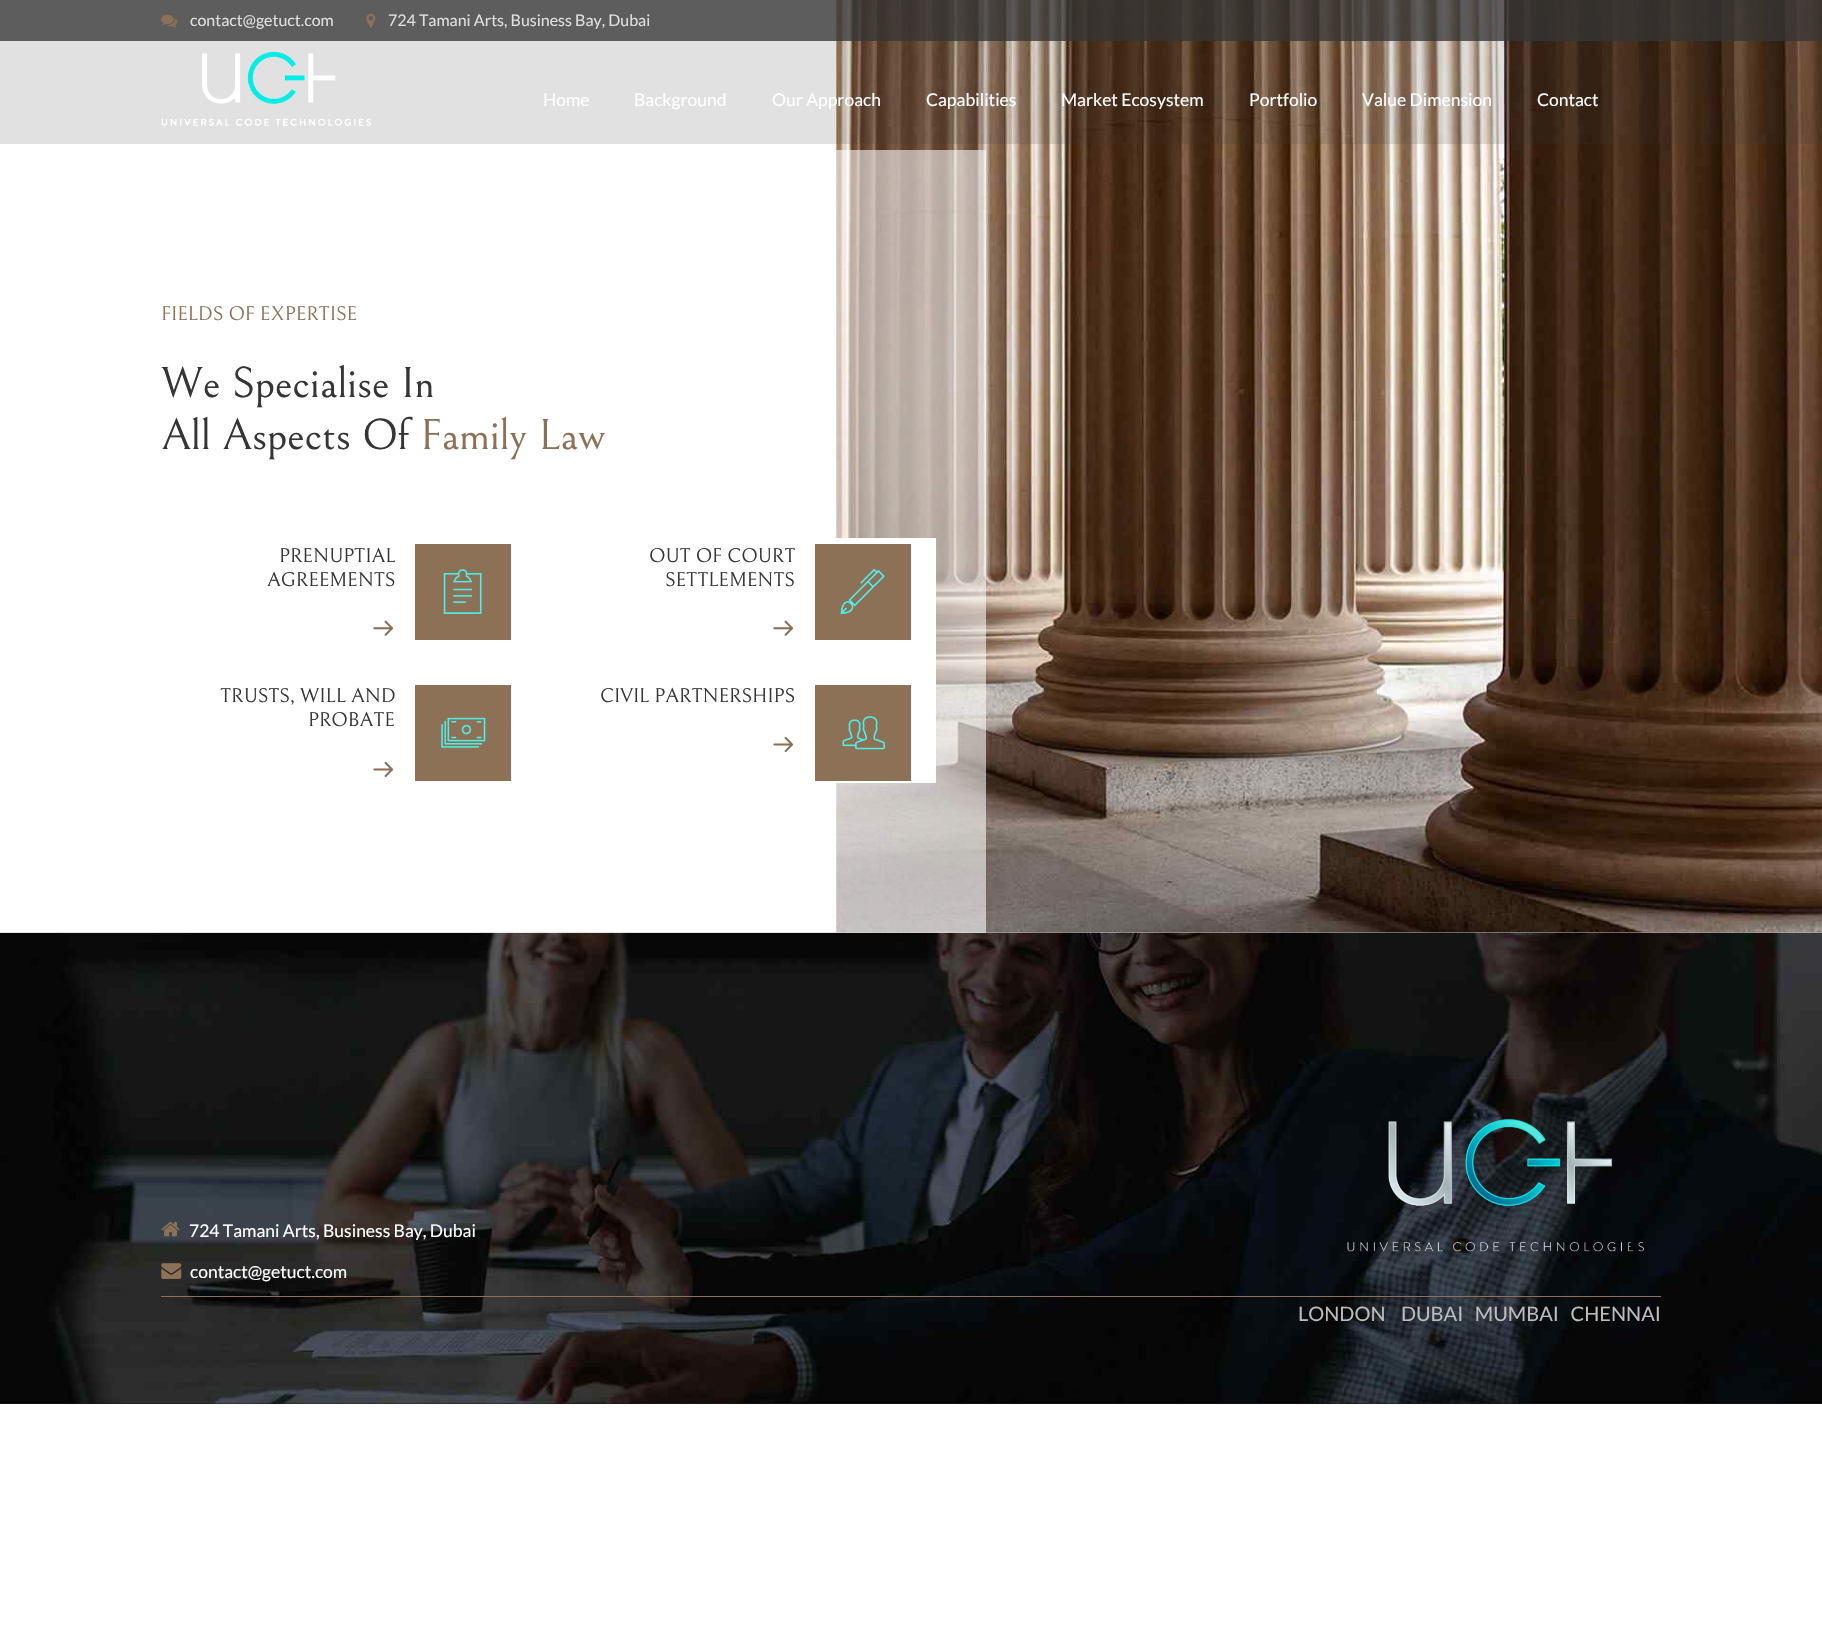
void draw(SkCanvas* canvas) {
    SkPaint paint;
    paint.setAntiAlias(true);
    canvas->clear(0xFFFFFFFF);
    canvas->drawImageRect(SkImages::DeferredFromEncodedData(SkData::MakeFromFileName("img12.png")), SkRect::MakeXYWH(836, 0, 986, 933), SkSamplingOptions());
    paint.setColor(0xCC353535);
    canvas->drawRect(SkRect::MakeXYWH(0, 0, 1822, 41), paint);
    canvas->drawImageRect(SkImages::DeferredFromEncodedData(SkData::MakeFromFileName("img1.png")), SkRect::MakeXYWH(161, 14, 17, 14), SkSamplingOptions());
    SkFont font1(fontMgr->matchFamilyStyle("Lato", SkFontStyle::Normal()), 16);
    font1.setSubpixel(true);
    paint.setColor(0xFFDFDFDF);
    canvas->drawString("contact@getuct.com", 190, 26, font1, paint);
    canvas->drawImageRect(SkImages::DeferredFromEncodedData(SkData::MakeFromFileName("img2.png")), SkRect::MakeXYWH(366, 13, 10, 15), SkSamplingOptions());
    canvas->drawString("724 Tamani Arts, Business Bay, Dubai", 388, 26, font1, paint);
    paint.setColor(0x26353535);
    canvas->drawRect(SkRect::MakeXYWH(0, 41, 1822, 103), paint);
    canvas->drawImageRect(SkImages::DeferredFromEncodedData(SkData::MakeFromFileName("img3.png")), SkRect::MakeXYWH(161, 51, 210, 75), SkSamplingOptions());
    SkFont font2(fontMgr->matchFamilyStyle("Lato", SkFontStyle::Normal()), 17.5f);
    font2.setSubpixel(true);
    paint.setColor(0xFFFFFFFF);
    canvas->drawString("Home", 543, 106, font2, paint);
    canvas->drawString("Background", 634, 106, font2, paint);
    canvas->drawString("Our Approach", 772, 106, font2, paint);
    canvas->drawString("Capabilities", 926, 106, font2, paint);
    canvas->drawString("Market Ecosystem", 1061, 106, font2, paint);
    canvas->drawString("Portfolio", 1249, 106, font2, paint);
    canvas->drawString("Value Dimension", 1362, 106, font2, paint);
    canvas->drawString("Contact", 1537, 106, font2, paint);
    paint.setColor(0xFF191919);
    canvas->drawRect(SkRect::MakeXYWH(0, 1403, 1822, 1), paint);
    canvas->drawImageRect(SkImages::DeferredFromEncodedData(SkData::MakeFromFileName("img13.png")), SkRect::MakeXYWH(0, 932, 1822, 472), SkSamplingOptions());
    paint.setColor(0x91FFFFFF);
    canvas->drawRect(SkRect::MakeXYWH(0, 150, 986, 783), paint);
    SkFont font3(fontMgr->matchFamilyStyle("Bellefair", SkFontStyle::Normal()), 20);
    font3.setSubpixel(true);
    paint.setColor(0xFF8C7156);
    canvas->drawString("FIELDS OF EXPERTISE", 161, 320, font3, paint);
    SkFont font4(fontMgr->matchFamilyStyle("Bellefair", SkFontStyle::Normal()), 43.75f);
    font4.setSubpixel(true);
    paint.setColor(0xFF353535);
    canvas->drawString("We Specialise In", 161, 397, font4, paint);
    canvas->drawString("All Aspects Of", 161, 449, font4, paint);
    paint.setColor(0xFF8C7156);
    canvas->drawString("Family Law", 420, 449, font4, paint);
    paint.setColor(0xFF353535);
    canvas->drawString("PRENUPTIAL", 279, 562, font3, paint);
    canvas->drawString("AGREEMENTS", 267, 586, font3, paint);
    canvas->drawImageRect(SkImages::DeferredFromEncodedData(SkData::MakeFromFileName("img4.png")), SkRect::MakeXYWH(373, 620, 21, 16), SkSamplingOptions());
    paint.setColor(0xFF8C7156);
    canvas->drawRect(SkRect::MakeXYWH(415, 544, 96, 96), paint);
    canvas->drawImageRect(SkImages::DeferredFromEncodedData(SkData::MakeFromFileName("img5.png")), SkRect::MakeXYWH(443, 569, 39, 45), SkSamplingOptions());
    paint.setColor(0xFF353535);
    canvas->drawString("TRUSTS, WILL AND", 220, 702, font3, paint);
    canvas->drawString("PROBATE", 308, 726, font3, paint);
    canvas->drawImageRect(SkImages::DeferredFromEncodedData(SkData::MakeFromFileName("img6.png")), SkRect::MakeXYWH(373, 761, 21, 16), SkSamplingOptions());
    paint.setColor(0xFF8C7156);
    canvas->drawRect(SkRect::MakeXYWH(415, 685, 96, 96), paint);
    canvas->drawImageRect(SkImages::DeferredFromEncodedData(SkData::MakeFromFileName("img7.png")), SkRect::MakeXYWH(441, 717, 45, 31), SkSamplingOptions());
    paint.setColor(0xFFFFFFFF);
    canvas->drawRect(SkRect::MakeXYWH(836, 538, 100, 245), paint);
    paint.setColor(0xFF353535);
    canvas->drawString("OUT OF COURT", 649, 562, font3, paint);
    canvas->drawString("SETTLEMENTS", 665, 586, font3, paint);
    canvas->drawImageRect(SkImages::DeferredFromEncodedData(SkData::MakeFromFileName("img8.png")), SkRect::MakeXYWH(773, 620, 21, 16), SkSamplingOptions());
    paint.setColor(0xFF8C7156);
    canvas->drawRect(SkRect::MakeXYWH(815, 544, 96, 96), paint);
    canvas->drawImageRect(SkImages::DeferredFromEncodedData(SkData::MakeFromFileName("img9.png")), SkRect::MakeXYWH(840, 569, 45, 45), SkSamplingOptions());
    paint.setColor(0xFF353535);
    canvas->drawString("CIVIL PARTNERSHIPS", 600, 702, font3, paint);
    canvas->drawImageRect(SkImages::DeferredFromEncodedData(SkData::MakeFromFileName("img10.png")), SkRect::MakeXYWH(773, 736, 21, 16), SkSamplingOptions());
    paint.setColor(0xFF8C7156);
    canvas->drawRect(SkRect::MakeXYWH(815, 685, 96, 96), paint);
    canvas->drawImageRect(SkImages::DeferredFromEncodedData(SkData::MakeFromFileName("img11.png")), SkRect::MakeXYWH(842, 716, 43, 34), SkSamplingOptions());
    canvas->drawImageRect(SkImages::DeferredFromEncodedData(SkData::MakeFromFileName("img14.png")), SkRect::MakeXYWH(161, 1221, 19, 16), SkSamplingOptions());
    paint.setColor(0xFFFFFFFF);
    canvas->drawString("724 Tamani Arts, Business Bay, Dubai", 189, 1237, font2, paint);
    canvas->drawImageRect(SkImages::DeferredFromEncodedData(SkData::MakeFromFileName("img15.png")), SkRect::MakeXYWH(161, 1263, 21, 16), SkSamplingOptions());
    canvas->drawString("contact@getuct.com", 190, 1278, font2, paint);
    canvas->drawImageRect(SkImages::DeferredFromEncodedData(SkData::MakeFromFileName("img16.png")), SkRect::MakeXYWH(1347, 1119, 298, 133), SkSamplingOptions());
    paint.setColor(0xFF8C7156);
    canvas->drawRect(SkRect::MakeXYWH(161, 1296, 1500, 1), paint);
    SkFont font5(fontMgr->matchFamilyStyle("Lato", SkFontStyle::Normal()), 20);
    font5.setSubpixel(true);
    paint.setColor(0xFFBDBBBB);
    canvas->drawString("LONDON    DUBAI   MUMBAI   CHENNAI", 1298, 1321, font5, paint);
}
